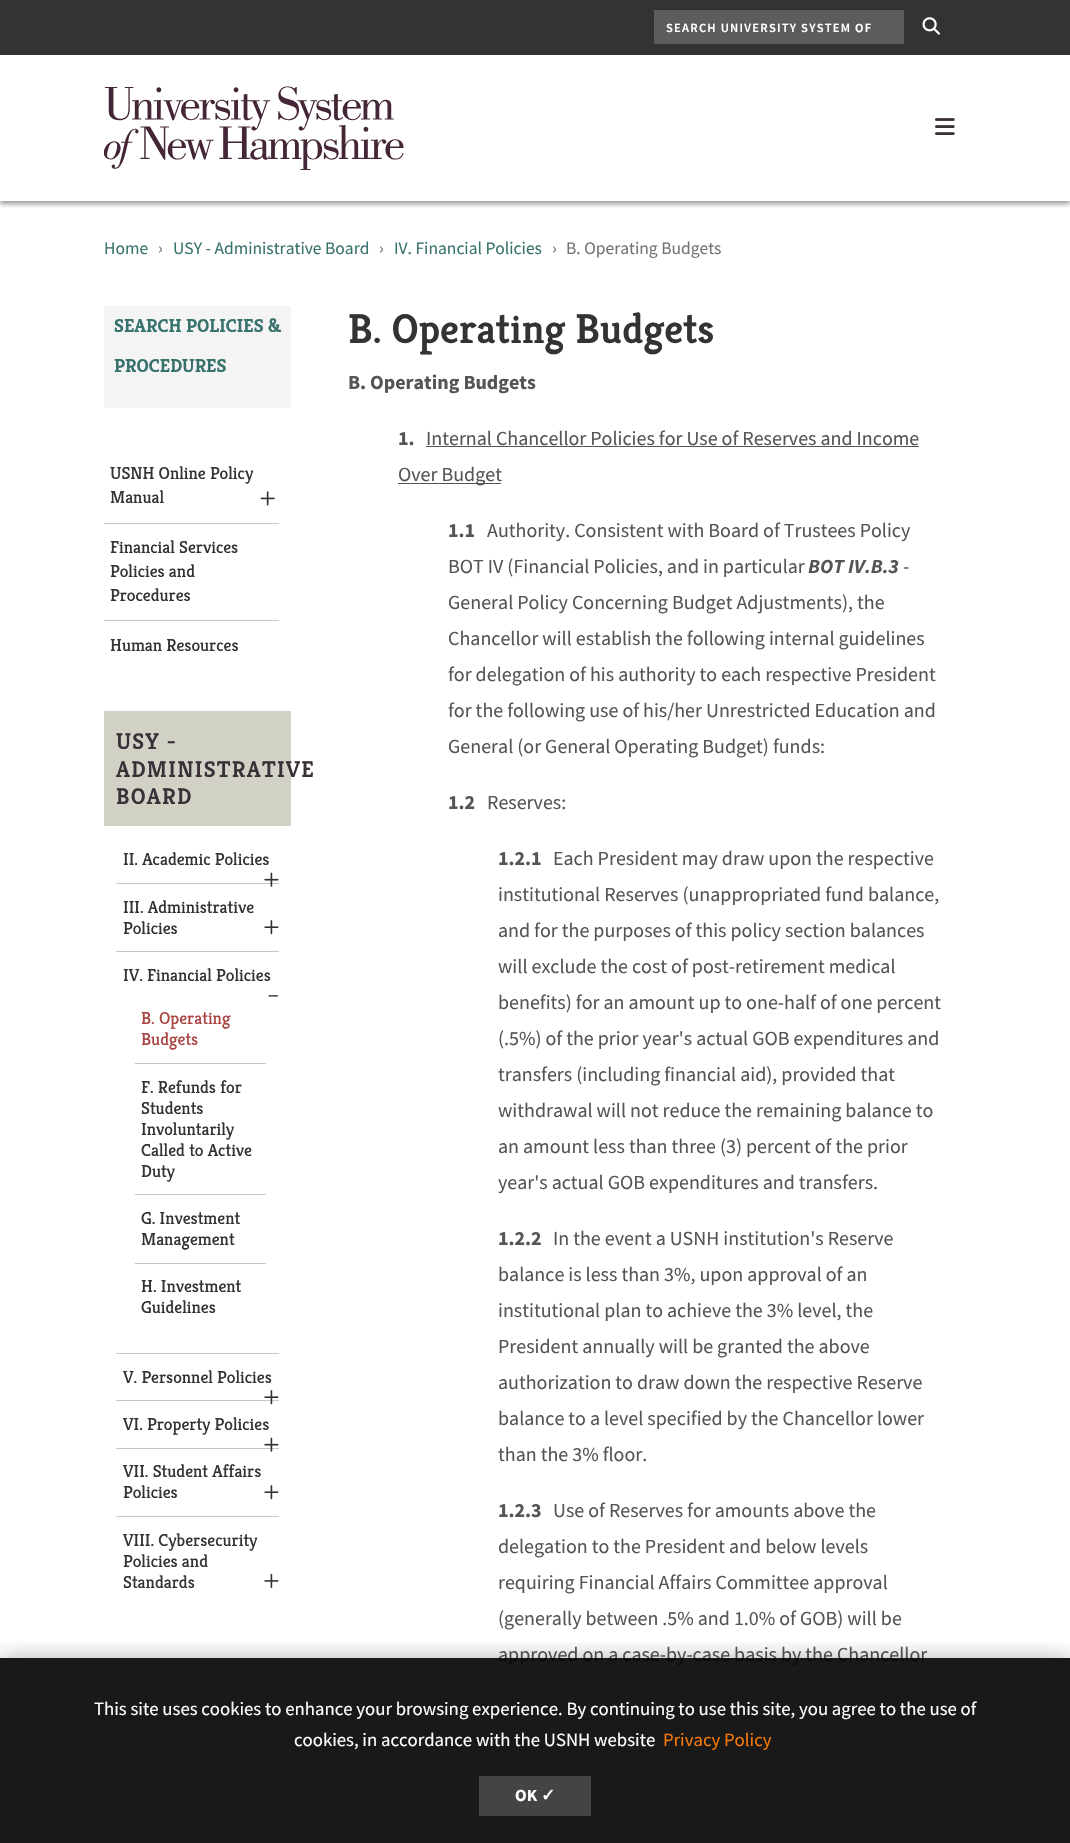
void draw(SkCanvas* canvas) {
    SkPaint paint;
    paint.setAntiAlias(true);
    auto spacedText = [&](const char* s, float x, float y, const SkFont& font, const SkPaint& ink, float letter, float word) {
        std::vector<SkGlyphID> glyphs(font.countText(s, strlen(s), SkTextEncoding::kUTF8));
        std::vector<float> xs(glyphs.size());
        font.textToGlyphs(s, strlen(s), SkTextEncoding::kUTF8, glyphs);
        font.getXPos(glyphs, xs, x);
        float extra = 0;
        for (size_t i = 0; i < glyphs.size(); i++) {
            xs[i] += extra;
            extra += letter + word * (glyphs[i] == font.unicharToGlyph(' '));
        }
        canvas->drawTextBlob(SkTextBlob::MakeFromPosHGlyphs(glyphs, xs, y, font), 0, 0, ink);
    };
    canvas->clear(0xFFFFFFFF);
    canvas->save();
    canvas->clipRect(SkRect::MakeXYWH(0, 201, 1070, 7));
    paint.setColor(0x66000000);
    paint.setMaskFilter(SkMaskFilter::MakeBlur(kNormal_SkBlurStyle, 2.5f));
    canvas->drawRect(SkRect::MakeXYWH(0, 3, 1070, 201), paint);
    paint.setMaskFilter(nullptr);
    canvas->restore();
    paint.setColor(0xFF333333);
    canvas->drawRect(SkRect::MakeXYWH(0, 0, 1070, 55), paint);
    paint.setColor(0xFF5C5C5C);
    canvas->drawRect(SkRect::MakeXYWH(654, 10, 250, 34), paint);
    SkFont font1(fontMgr->matchFamilyStyle("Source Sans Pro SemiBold", SkFontStyle(600, SkFontStyle::kNormal_Width, SkFontStyle::kUpright_Slant)), 12.5f);
    font1.setSubpixel(true);
    paint.setColor(0xFFFFFFFF);
    spacedText("SEARCH UNIVERSITY SYSTEM OF", 666, 32, font1, paint, 1.25f, 0);
    canvas->drawImageRect(SkImages::DeferredFromEncodedData(SkData::MakeFromFileName("img1.png")), SkRect::MakeXYWH(922, 17, 18, 18), SkSamplingOptions());
    canvas->drawImageRect(SkImages::DeferredFromEncodedData(SkData::MakeFromFileName("img2.png")), SkRect::MakeXYWH(104, 86, 300, 84), SkSamplingOptions());
    canvas->drawImageRect(SkImages::DeferredFromEncodedData(SkData::MakeFromFileName("img3.png")), SkRect::MakeXYWH(935, 118, 20, 17), SkSamplingOptions());
    SkFont font2(fontMgr->matchFamilyStyle("Source Sans Pro", SkFontStyle::Normal()), 17.5f);
    font2.setSubpixel(true);
    paint.setColor(0xFF38726C);
    canvas->drawString("Home", 104, 254, font2, paint);
    paint.setColor(0xFF737373);
    canvas->drawString("›", 158, 254, font2, paint);
    paint.setColor(0xFF38726C);
    canvas->drawString("USY - Administrative Board", 173, 254, font2, paint);
    paint.setColor(0xFF737373);
    canvas->drawString("›", 379, 254, font2, paint);
    paint.setColor(0xFF38726C);
    canvas->drawString("IV. Financial Policies", 394, 254, font2, paint);
    paint.setColor(0xFF737373);
    canvas->drawString("›", 552, 254, font2, paint);
    canvas->drawString("B. Operating Budgets", 566, 254, font2, paint);
    paint.setColor(0xFFF4F4F4);
    canvas->drawRect(SkRect::MakeXYWH(104, 306, 187, 102), paint);
    SkFont font3(fontMgr->matchFamilyStyle("Kreon", SkFontStyle::Bold()), 18.75f);
    font3.setSubpixel(true);
    paint.setColor(0xFF38726C);
    canvas->drawString("SEARCH POLICIES &", 114, 332, font3, paint);
    canvas->drawString("PROCEDURES", 114, 372, font3, paint);
    paint.setColor(0xFFC7C7C7);
    canvas->drawRect(SkRect::MakeXYWH(104, 523, 175, 1), paint);
    SkFont font4(fontMgr->matchFamilyStyle("Kreon", SkFontStyle::Normal()), 17.5f);
    font4.setSubpixel(true);
    paint.setColor(0xFF333333);
    canvas->drawString("USNH Online Policy", 110, 479, font4, paint);
    canvas->drawString("Manual", 110, 503, font4, paint);
    canvas->drawImageRect(SkImages::DeferredFromEncodedData(SkData::MakeFromFileName("img4.png")), SkRect::MakeXYWH(260, 491, 15, 15), SkSamplingOptions());
    paint.setColor(0xFFC7C7C7);
    canvas->drawRect(SkRect::MakeXYWH(104, 620, 175, 1), paint);
    paint.setColor(0xFF333333);
    canvas->drawString("Financial Services", 110, 553, font4, paint);
    canvas->drawString("Policies and", 110, 577, font4, paint);
    canvas->drawString("Procedures", 110, 601, font4, paint);
    canvas->drawString("Human Resources", 110, 651, font4, paint);
    paint.setColor(0xFFD2D1C6);
    canvas->drawRect(SkRect::MakeXYWH(104, 711, 187, 115), paint);
    SkFont font5(fontMgr->matchFamilyStyle("Kreon", SkFontStyle(600, SkFontStyle::kNormal_Width, SkFontStyle::kUpright_Slant)), 22.75f);
    font5.setSubpixel(true);
    paint.setColor(0xFF3A3037);
    spacedText("USY -", 116, 749, font5, paint, 1.25f, 0);
    spacedText("ADMINISTRATIVE", 116, 777, font5, paint, 1.25f, 0);
    spacedText("BOARD", 116, 804, font5, paint, 1.25f, 0);
    paint.setColor(0xFFC7C7C7);
    canvas->drawRect(SkRect::MakeXYWH(116, 883, 163, 1), paint);
    paint.setColor(0xFF333333);
    canvas->drawString("II. Academic Policies", 123, 865, font4, paint);
    canvas->drawImageRect(SkImages::DeferredFromEncodedData(SkData::MakeFromFileName("img5.png")), SkRect::MakeXYWH(264, 872, 15, 15), SkSamplingOptions());
    paint.setColor(0xFFC7C7C7);
    canvas->drawRect(SkRect::MakeXYWH(116, 951, 163, 1), paint);
    paint.setColor(0xFF333333);
    canvas->drawString("III. Administrative", 123, 913, font4, paint);
    canvas->drawString("Policies", 123, 934, font4, paint);
    canvas->drawImageRect(SkImages::DeferredFromEncodedData(SkData::MakeFromFileName("img6.png")), SkRect::MakeXYWH(264, 920, 15, 15), SkSamplingOptions());
    paint.setColor(0xFFC7C7C7);
    canvas->drawRect(SkRect::MakeXYWH(116, 1353, 163, 1), paint);
    paint.setColor(0xFF333333);
    canvas->drawString("IV. Financial Policies", 123, 981, font4, paint);
    canvas->drawString("−", 268, 1002, font4, paint);
    paint.setColor(0xFFC7C7C7);
    canvas->drawRect(SkRect::MakeXYWH(135, 1063, 131, 1), paint);
    paint.setColor(0xFFA94442);
    canvas->drawString("B. Operating", 141, 1024, font4, paint);
    canvas->drawString("Budgets", 141, 1045, font4, paint);
    paint.setColor(0xFFC7C7C7);
    canvas->drawRect(SkRect::MakeXYWH(135, 1194, 131, 1), paint);
    paint.setColor(0xFF333333);
    canvas->drawString("F. Refunds for", 141, 1093, font4, paint);
    canvas->drawString("Students", 141, 1114, font4, paint);
    canvas->drawString("Involuntarily", 141, 1135, font4, paint);
    canvas->drawString("Called to Active", 141, 1156, font4, paint);
    canvas->drawString("Duty", 141, 1177, font4, paint);
    paint.setColor(0xFFC7C7C7);
    canvas->drawRect(SkRect::MakeXYWH(135, 1263, 131, 1), paint);
    paint.setColor(0xFF333333);
    canvas->drawString("G. Investment", 141, 1224, font4, paint);
    canvas->drawString("Management", 141, 1245, font4, paint);
    canvas->drawString("H. Investment", 141, 1292, font4, paint);
    canvas->drawString("Guidelines", 141, 1313, font4, paint);
    paint.setColor(0xFFC7C7C7);
    canvas->drawRect(SkRect::MakeXYWH(116, 1400, 163, 1), paint);
    paint.setColor(0xFF333333);
    canvas->drawString("V. Personnel Policies", 123, 1383, font4, paint);
    canvas->drawImageRect(SkImages::DeferredFromEncodedData(SkData::MakeFromFileName("img7.png")), SkRect::MakeXYWH(264, 1390, 15, 15), SkSamplingOptions());
    paint.setColor(0xFFC7C7C7);
    canvas->drawRect(SkRect::MakeXYWH(116, 1448, 163, 1), paint);
    paint.setColor(0xFF333333);
    canvas->drawString("VI. Property Policies", 123, 1430, font4, paint);
    canvas->drawImageRect(SkImages::DeferredFromEncodedData(SkData::MakeFromFileName("img5.png")), SkRect::MakeXYWH(264, 1437, 15, 15), SkSamplingOptions());
    paint.setColor(0xFFC7C7C7);
    canvas->drawRect(SkRect::MakeXYWH(116, 1516, 163, 1), paint);
    paint.setColor(0xFF333333);
    canvas->drawString("VII. Student Affairs", 123, 1477, font4, paint);
    canvas->drawString("Policies", 123, 1498, font4, paint);
    canvas->drawImageRect(SkImages::DeferredFromEncodedData(SkData::MakeFromFileName("img6.png")), SkRect::MakeXYWH(264, 1485, 15, 15), SkSamplingOptions());
    canvas->drawString("VIII. Cybersecurity", 123, 1546, font4, paint);
    canvas->drawString("Policies and", 123, 1567, font4, paint);
    canvas->drawString("Standards", 123, 1588, font4, paint);
    canvas->drawImageRect(SkImages::DeferredFromEncodedData(SkData::MakeFromFileName("img8.png")), SkRect::MakeXYWH(264, 1573, 15, 15), SkSamplingOptions());
    SkFont font6(fontMgr->matchFamilyStyle("Kreon", SkFontStyle(600, SkFontStyle::kNormal_Width, SkFontStyle::kUpright_Slant)), 41.75f);
    font6.setSubpixel(true);
    canvas->drawString("B. Operating Budgets", 348, 343, font6, paint);
    SkFont font7(fontMgr->matchFamilyStyle("Source Sans Pro", SkFontStyle::Bold()), 20);
    font7.setSubpixel(true);
    paint.setColor(0xFF555555);
    canvas->drawString("B. Operating Budgets", 348, 389, font7, paint);
    canvas->drawString("1.", 398, 445, font7, paint);
    SkFont font8(fontMgr->matchFamilyStyle("Source Sans Pro", SkFontStyle::Normal()), 20);
    font8.setSubpixel(true);
    canvas->drawString("Internal Chancellor Policies for Use of Reserves and Income", 426, 445, font8, paint);
    canvas->drawRect(SkRect::MakeXYWH(426, 446, 493, 1), paint);
    canvas->drawRect(SkRect::MakeXYWH(398, 483, 103, 1), paint);
    canvas->drawString("Over Budget", 398, 481, font8, paint);
    canvas->drawString("1.1", 448, 537, font7, paint);
    canvas->drawString("Authority. Consistent with Board of Trustees Policy", 487, 537, font8, paint);
    canvas->drawString("BOT IV (Financial Policies, and in particular", 448, 573, font8, paint);
    SkFont font9(fontMgr->matchFamilyStyle("Source Sans Pro", SkFontStyle::BoldItalic()), 20);
    font9.setSubpixel(true);
    canvas->drawString("BOT IV.B.3", 808, 573, font9, paint);
    canvas->drawString("-", 903, 573, font8, paint);
    canvas->drawString("General Policy Concerning Budget Adjustments), the", 448, 609, font8, paint);
    canvas->drawString("Chancellor will establish the following internal guidelines", 448, 645, font8, paint);
    canvas->drawString("for delegation of his authority to each respective President", 448, 681, font8, paint);
    canvas->drawString("for the following use of his/her Unrestricted Education and", 448, 717, font8, paint);
    canvas->drawString("General (or General Operating Budget) funds:", 448, 753, font8, paint);
    canvas->drawString("1.2", 448, 809, font7, paint);
    canvas->drawString("Reserves:", 487, 809, font8, paint);
    canvas->drawString("1.2.1", 498, 865, font7, paint);
    canvas->drawString("Each President may draw upon the respective", 553, 865, font8, paint);
    canvas->drawString("institutional Reserves (unappropriated fund balance,", 498, 901, font8, paint);
    canvas->drawString("and for the purposes of this policy section balances", 498, 937, font8, paint);
    canvas->drawString("will exclude the cost of post-retirement medical", 498, 973, font8, paint);
    canvas->drawString("benefits) for an amount up to one-half of one percent", 498, 1009, font8, paint);
    canvas->drawString("(.5%) of the prior year's actual GOB expenditures and", 498, 1045, font8, paint);
    canvas->drawString("transfers (including financial aid), provided that", 498, 1081, font8, paint);
    canvas->drawString("withdrawal will not reduce the remaining balance to", 498, 1117, font8, paint);
    canvas->drawString("an amount less than three (3) percent of the prior", 498, 1153, font8, paint);
    canvas->drawString("year's actual GOB expenditures and transfers.", 498, 1189, font8, paint);
    canvas->drawString("1.2.2", 498, 1245, font7, paint);
    canvas->drawString("In the event a USNH institution's Reserve", 553, 1245, font8, paint);
    canvas->drawString("balance is less than 3%, upon approval of an", 498, 1281, font8, paint);
    canvas->drawString("institutional plan to achieve the 3% level, the", 498, 1317, font8, paint);
    canvas->drawString("President annually will be granted the above", 498, 1353, font8, paint);
    canvas->drawString("authorization to draw down the respective Reserve", 498, 1389, font8, paint);
    canvas->drawString("balance to a level specified by the Chancellor lower", 498, 1425, font8, paint);
    canvas->drawString("than the 3% floor.", 498, 1461, font8, paint);
    canvas->drawString("1.2.3", 498, 1517, font7, paint);
    canvas->drawString("Use of Reserves for amounts above the", 553, 1517, font8, paint);
    canvas->drawString("delegation to the President and below levels", 498, 1553, font8, paint);
    canvas->drawString("requiring Financial Affairs Committee approval", 498, 1589, font8, paint);
    canvas->drawString("(generally between .5% and 1.0% of GOB) will be", 498, 1625, font8, paint);
    canvas->drawString("approved on a case-by-case basis by the Chancellor", 498, 1661, font8, paint);
    canvas->save();
    canvas->clipRect(SkRect::MakeXYWH(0, 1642, 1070, 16));
    paint.setColor(0x4D000000);
    paint.setMaskFilter(SkMaskFilter::MakeBlur(kNormal_SkBlurStyle, 10.5f));
    canvas->drawRect(SkRect::MakeXYWH(0, 1658, 1070, 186), paint);
    paint.setMaskFilter(nullptr);
    canvas->restore();
    paint.setColor(0xE6000000);
    canvas->drawRect(SkRect::MakeXYWH(0, 1658, 1070, 185), paint);
    SkFont font10(fontMgr->matchFamilyStyle("Source Sans Pro", SkFontStyle::Normal()), 18.75f);
    font10.setSubpixel(true);
    paint.setColor(0xFFFFFFFF);
    canvas->drawString("This site uses cookies to enhance your browsing experience. By continuing to use this site, you agree to the use of", 94, 1715, font10, paint);
    canvas->drawString("cookies, in accordance with the USNH website", 294, 1746, font10, paint);
    paint.setColor(0xFFF77A05);
    canvas->drawString("Privacy Policy", 663, 1746, font10, paint);
    paint.setColor(0xFF444444);
    canvas->drawRect(SkRect::MakeXYWH(479, 1776, 112, 40), paint);
    SkFont font11(fontMgr->matchFamilyStyle("Source Sans Pro", SkFontStyle::Bold()), 17);
    font11.setSubpixel(true);
    paint.setColor(0xFFFFFFFF);
    canvas->drawString("OK", 515, 1801, font11, paint);
    SkFont font12(fontMgr->matchFamilyStyle("DejaVu Sans", SkFontStyle::Bold()), 17);
    font12.setSubpixel(true);
    canvas->drawString("✓", 541, 1801, font12, paint);
}
